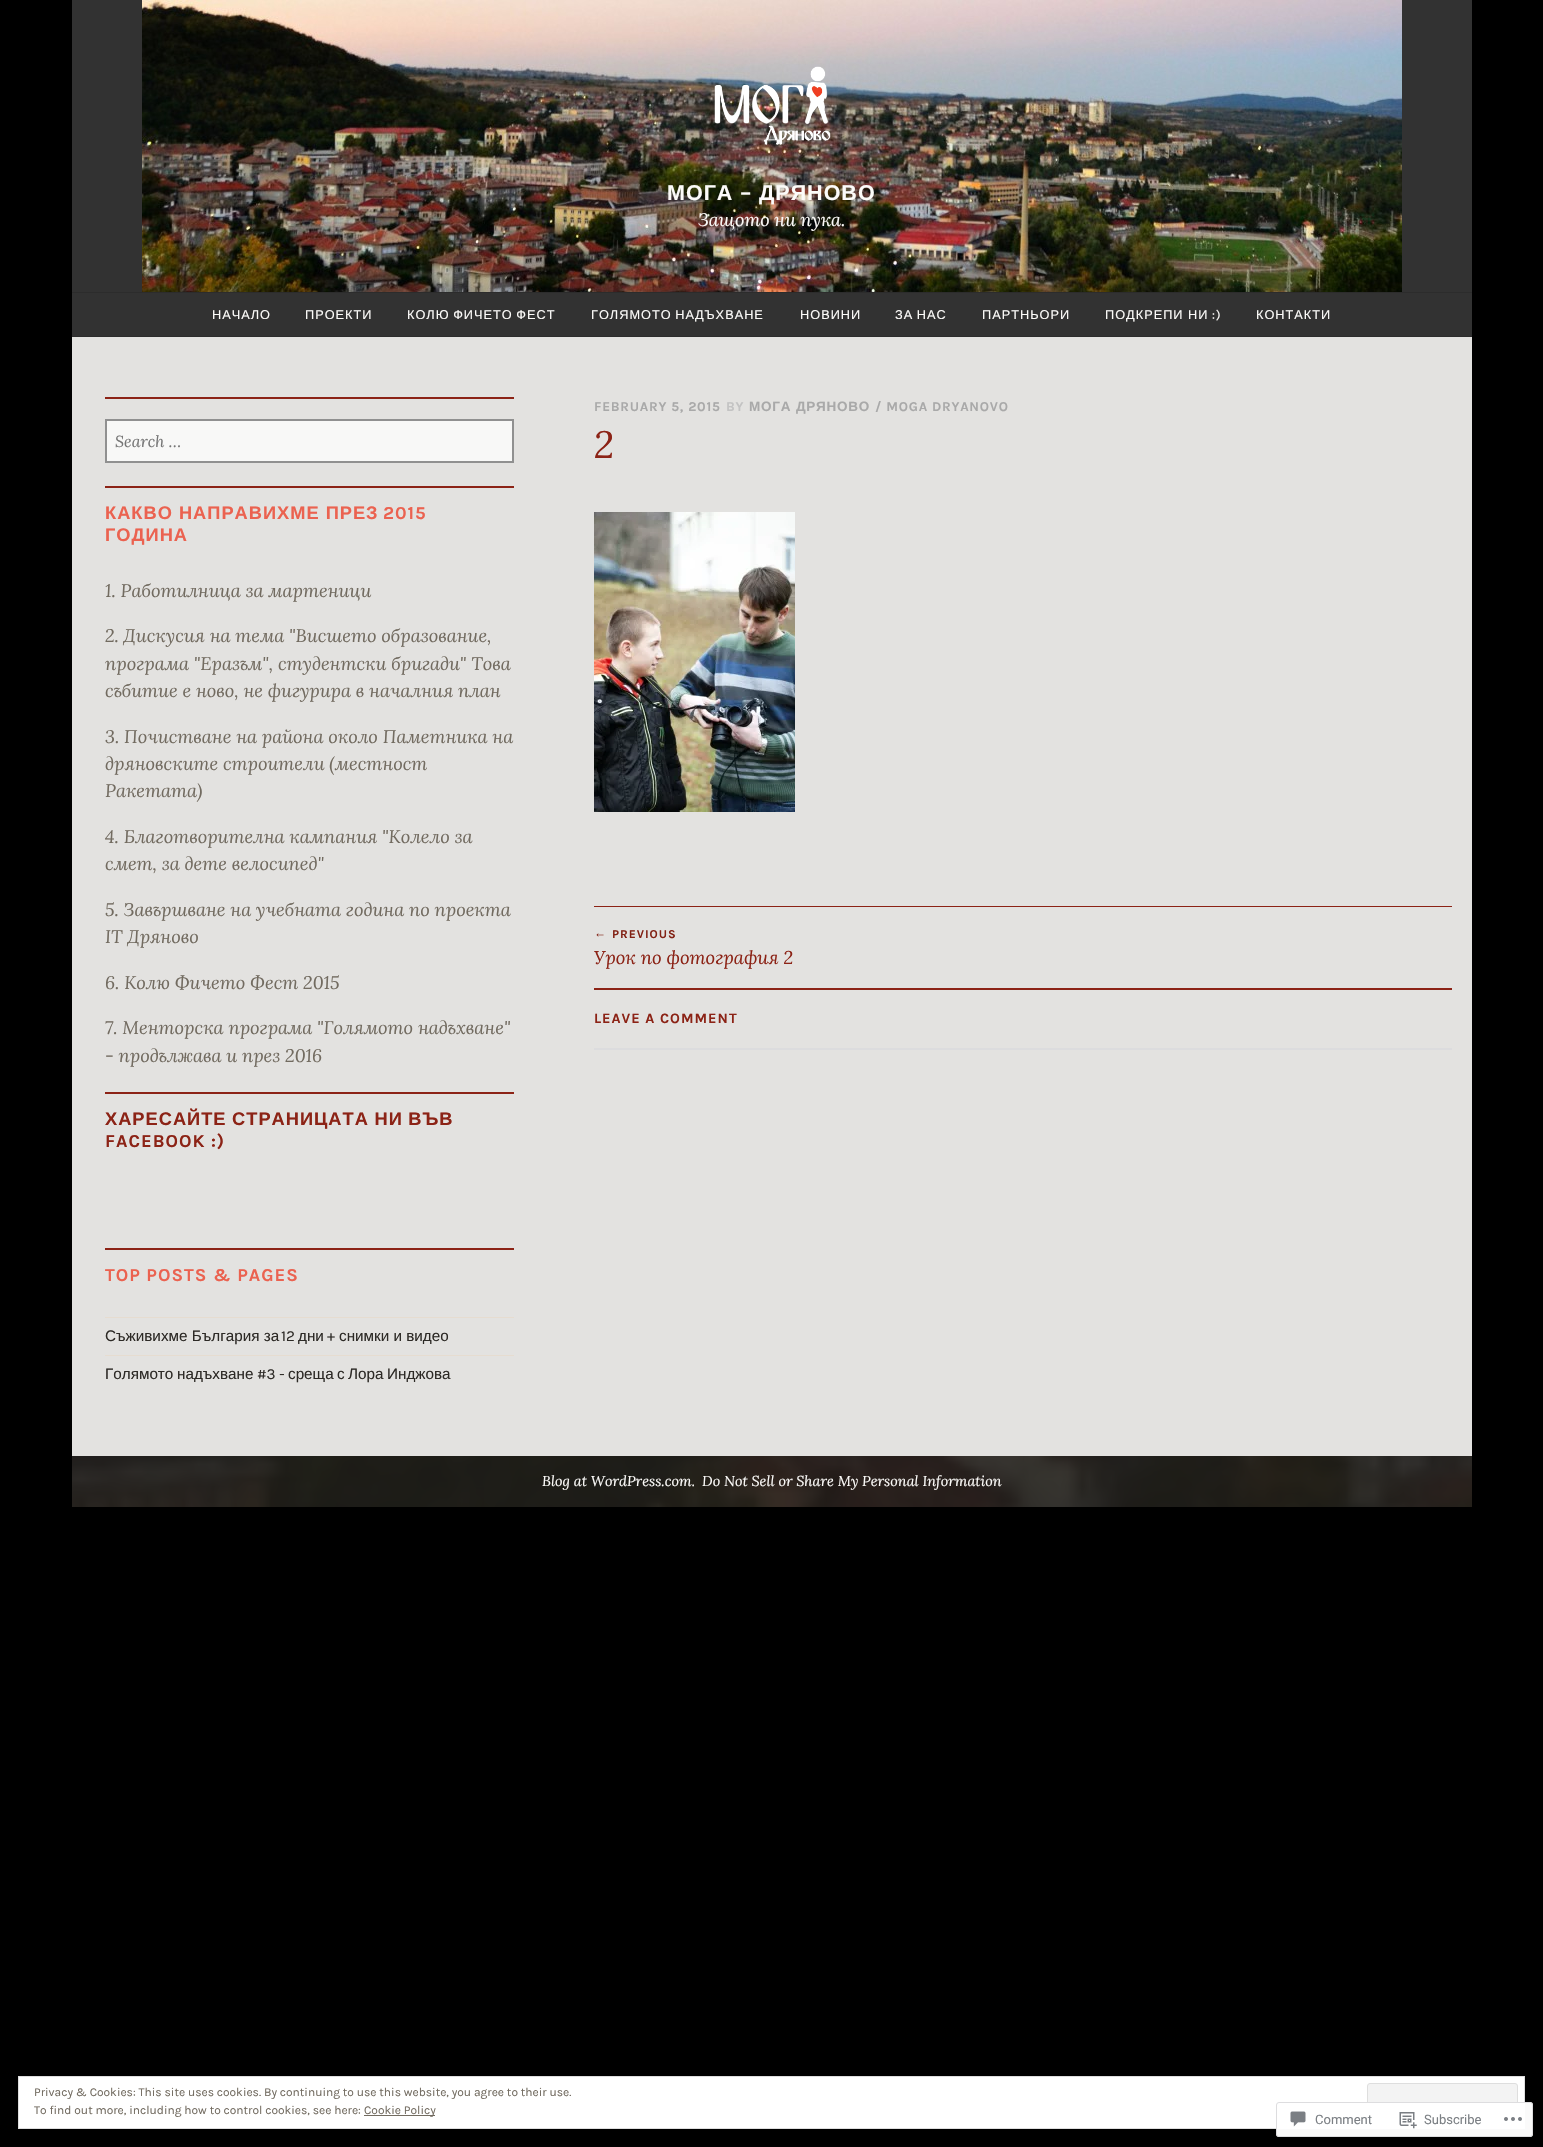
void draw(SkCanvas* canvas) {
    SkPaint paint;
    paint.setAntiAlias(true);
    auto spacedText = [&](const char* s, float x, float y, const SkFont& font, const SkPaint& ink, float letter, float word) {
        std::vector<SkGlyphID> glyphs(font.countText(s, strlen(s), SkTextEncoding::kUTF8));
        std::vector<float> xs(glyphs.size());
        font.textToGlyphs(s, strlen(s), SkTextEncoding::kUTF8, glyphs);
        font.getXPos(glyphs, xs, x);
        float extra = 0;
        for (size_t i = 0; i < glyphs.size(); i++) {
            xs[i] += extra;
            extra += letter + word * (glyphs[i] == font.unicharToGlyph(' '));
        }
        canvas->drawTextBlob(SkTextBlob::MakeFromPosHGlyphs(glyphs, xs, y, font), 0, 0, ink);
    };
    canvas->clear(0xFF000000);
    paint.setColor(0xFFE3E2E0);
    canvas->drawRect(SkRect::MakeXYWH(72, 337, 1400, 1119), paint);
    paint.setColor(0xFF323232);
    canvas->drawRect(SkRect::MakeXYWH(72, 0, 1400, 292), paint);
    canvas->drawImageRect(SkImages::DeferredFromEncodedData(SkData::MakeFromFileName("img1.png")), SkRect::MakeXYWH(142, 0, 1260, 292), SkSamplingOptions());
    canvas->drawImageRect(SkImages::DeferredFromEncodedData(SkData::MakeFromFileName("img2.png")), SkRect::MakeXYWH(714, 66, 117, 79), SkSamplingOptions());
    SkFont font1(fontMgr->matchFamilyStyle("Liberation Sans", SkFontStyle::Bold()), 21.5f);
    font1.setSubpixel(true);
    paint.setColor(0xFFFCFBF9);
    spacedText("МОГА", 667, 200, font1, paint, 1, 0);
    SkFont font2(fontMgr->matchFamilyStyle("Karla", SkFontStyle::Bold()), 21.5f);
    font2.setSubpixel(true);
    spacedText("–", 740, 200, font2, paint, 1, 0);
    spacedText("ДРЯНОВО", 759, 200, font1, paint, 1, 0);
    SkFont font3(fontMgr->matchFamilyStyle("Lora", SkFontStyle::Italic()), 18);
    font3.setSubpixel(true);
    canvas->drawString("Защото ни пука.", 698, 226, font3, paint);
    paint.setColor(0xFF323232);
    canvas->drawRect(SkRect::MakeXYWH(72, 293, 1400, 43), paint);
    paint.setColor(0xFF2C2C2C);
    canvas->drawRect(SkRect::MakeXYWH(72, 292, 1400, 1), paint);
    canvas->drawRect(SkRect::MakeXYWH(72, 336, 1400, 1), paint);
    SkFont font4(fontMgr->matchFamilyStyle("Liberation Sans", SkFontStyle::Normal()), 12.75f);
    font4.setSubpixel(true);
    paint.setColor(0xFFFCFBF9);
    spacedText("НАЧАЛО", 212, 319, font4, paint, 1, 0);
    spacedText("ПРОЕКТИ", 305, 319, font4, paint, 1, 0);
    spacedText("КОЛЮ ФИЧЕТО ФЕСТ", 407, 319, font4, paint, 1, -1);
    spacedText("ГОЛЯМОТО НАДЪХВАНЕ", 591, 319, font4, paint, 1, -1);
    spacedText("НОВИНИ", 800, 319, font4, paint, 1, 0);
    spacedText("ЗА НАС", 895, 319, font4, paint, 1, -1);
    spacedText("ПАРТНЬОРИ", 982, 319, font4, paint, 1, 0);
    spacedText("ПОДКРЕПИ НИ", 1105, 319, font4, paint, 1, 0);
    SkFont font5(fontMgr->matchFamilyStyle("Karla", SkFontStyle::Normal()), 12.75f);
    font5.setSubpixel(true);
    spacedText(":)", 1212, 319, font5, paint, 1, 0);
    spacedText("КОНТАКТИ", 1256, 319, font4, paint, 1, 0);
    paint.setColor(0xFF8C2316);
    canvas->drawRect(SkRect::MakeXYWH(105, 397, 409, 2), paint);
    paint.setColor(0xFFF8F8F7);
    canvas->drawRect(SkRect::MakeXYWH(106, 420, 407, 42), paint);
    paint.setStyle(SkPaint::kStroke_Style);
    paint.setStrokeWidth(2);
    paint.setColor(0xFF909090);
    canvas->drawRect(SkRect::MakeXYWH(106, 420, 407, 42), paint);
    SkFont font6(fontMgr->matchFamilyStyle("Lora", SkFontStyle::Italic()), 16);
    font6.setSubpixel(true);
    paint.setStyle(SkPaint::kFill_Style);
    paint.setColor(0xFF757575);
    canvas->drawString("Search …", 115, 447, font6, paint);
    paint.setColor(0xFF8C2316);
    canvas->drawRect(SkRect::MakeXYWH(105, 486, 409, 2), paint);
    SkFont font7(fontMgr->matchFamilyStyle("Liberation Sans", SkFontStyle::Bold()), 18.25f);
    font7.setSubpixel(true);
    paint.setColor(0xFFEB6250);
    spacedText("КАКВО НАПРАВИХМЕ ПРЕЗ", 105, 519, font7, paint, 1, 0);
    SkFont font8(fontMgr->matchFamilyStyle("Karla", SkFontStyle::Bold()), 18.25f);
    font8.setSubpixel(true);
    spacedText("2015", 383, 519, font8, paint, 1, 0);
    spacedText("ГОДИНА", 105, 541, font7, paint, 1, 0);
    SkFont font9(fontMgr->matchFamilyStyle("Lora", SkFontStyle::Italic()), 18.25f);
    font9.setSubpixel(true);
    paint.setColor(0xFF726B60);
    canvas->drawString("1. Работилница за мартеници", 105, 597, font9, paint);
    canvas->drawString("2. Дискусия на тема \"Висшето образование,", 105, 642, font9, paint);
    canvas->drawString("програма \"Еразъм\", студентски бригади\" Това", 105, 670, font9, paint);
    canvas->drawString("събитие е ново, не фигурира в началния план", 105, 697, font9, paint);
    canvas->drawString("3. Почистване на района около Паметника на", 105, 743, font9, paint);
    canvas->drawString("дряновските строители (местност", 105, 770, font9, paint);
    canvas->drawString("Ракетата)", 105, 797, font9, paint);
    canvas->drawString("4. Благотворителна кампания \"Колело за", 105, 843, font9, paint);
    canvas->drawString("смет, за дете велосипед\"", 105, 870, font9, paint);
    canvas->drawString("5. Завършване на учебната година по проекта", 105, 916, font9, paint);
    canvas->drawString("IT Дряново", 105, 943, font9, paint);
    canvas->drawString("6. Колю Фичето Фест 2015", 105, 989, font9, paint);
    canvas->drawString("7. Менторска програма \"Голямото надъхване\"", 105, 1034, font9, paint);
    canvas->drawString("- продължава и през 2016", 105, 1062, font9, paint);
    paint.setColor(0xFF8C2316);
    canvas->drawRect(SkRect::MakeXYWH(105, 1092, 409, 2), paint);
    spacedText("ХАРЕСАЙТЕ СТРАНИЦАТА НИ ВЪВ", 105, 1125, font7, paint, 1, -0.5f);
    spacedText("FACEBOOK :)", 105, 1147, font8, paint, 1, 0);
    canvas->drawRect(SkRect::MakeXYWH(105, 1248, 409, 2), paint);
    paint.setColor(0xFFEB6250);
    spacedText("TOP POSTS & PAGES", 105, 1281, font8, paint, 1, 0);
    paint.setColor(0xFFE6DCD0);
    canvas->drawRect(SkRect::MakeXYWH(105, 1317, 409, 1), paint);
    SkFont font10(fontMgr->matchFamilyStyle("Liberation Sans", SkFontStyle::Normal()), 15.25f);
    font10.setSubpixel(true);
    paint.setColor(0xFF2D2A26);
    canvas->drawString("Съживихме България за", 105, 1341, font10, paint);
    SkFont font11(fontMgr->matchFamilyStyle("Karla", SkFontStyle::Normal()), 15.25f);
    font11.setSubpixel(true);
    canvas->drawString("12", 281, 1341, font11, paint);
    canvas->drawString("дни", 298, 1341, font10, paint);
    canvas->drawString("+", 327, 1341, font11, paint);
    canvas->drawString("снимки и видео", 339, 1341, font10, paint);
    paint.setColor(0xFFE6DCD0);
    canvas->drawRect(SkRect::MakeXYWH(105, 1355, 409, 1), paint);
    paint.setColor(0xFF2D2A26);
    canvas->drawString("Голямото", 105, 1379, font10, paint);
    canvas->drawString("надъхване", 177, 1379, font10, paint);
    canvas->drawString("#3 -", 257, 1379, font11, paint);
    canvas->drawString("среща", 288, 1379, font10, paint);
    canvas->drawString("с", 337, 1379, font10, paint);
    canvas->drawString("Лора", 348, 1379, font10, paint);
    canvas->drawString("Инджова", 387, 1379, font10, paint);
    SkFont font12(fontMgr->matchFamilyStyle("Karla", SkFontStyle::Bold()), 13.5f);
    font12.setSubpixel(true);
    paint.setColor(0xFFA9A9A9);
    spacedText("FEBRUARY 5, 2015", 594, 411, font12, paint, 0.75f, 0);
    paint.setColor(0xFFC3C3C3);
    spacedText("BY", 726, 411, font12, paint, 0.75f, 0);
    SkFont font13(fontMgr->matchFamilyStyle("Liberation Sans", SkFontStyle::Bold()), 13.5f);
    font13.setSubpixel(true);
    paint.setColor(0xFFA9A9A9);
    spacedText("МОГА", 749, 411, font13, paint, 0.75f, 0);
    spacedText("ДРЯНОВО", 796, 411, font13, paint, 0.75f, 0);
    spacedText("/ MOGA DRYANOVO", 875, 411, font12, paint, 0.75f, 0);
    SkFont font14(fontMgr->matchFamilyStyle("Lora", SkFontStyle::Italic()), 38);
    font14.setSubpixel(true);
    paint.setColor(0xFF8C2316);
    canvas->drawString("2", 594, 458, font14, paint);
    canvas->drawImageRect(SkImages::DeferredFromEncodedData(SkData::MakeFromFileName("img3.png")), SkRect::MakeXYWH(594, 512, 201, 300), SkSamplingOptions());
    canvas->drawRect(SkRect::MakeXYWH(594, 906, 858, 1), paint);
    canvas->drawRect(SkRect::MakeXYWH(594, 988, 858, 2), paint);
    SkFont font15(fontMgr->matchFamilyStyle("Liberation Serif", SkFontStyle::Normal()), 12);
    font15.setSubpixel(true);
    paint.setColor(0xFF822114);
    spacedText("←", 594, 937, font15, paint, 1, 0);
    SkFont font16(fontMgr->matchFamilyStyle("Karla", SkFontStyle::Bold()), 12);
    font16.setSubpixel(true);
    spacedText("PREVIOUS", 612, 938, font16, paint, 1, 0);
    SkFont font17(fontMgr->matchFamilyStyle("Lora", SkFontStyle::Italic()), 18.4f);
    font17.setSubpixel(true);
    paint.setColor(0xFF8C2316);
    canvas->drawString("Урок по фотография 2", 594, 964, font17, paint);
    SkFont font18(fontMgr->matchFamilyStyle("Karla", SkFontStyle::Bold()), 14.4f);
    font18.setSubpixel(true);
    spacedText("LEAVE A COMMENT", 594, 1023, font18, paint, 1, 0);
    paint.setColor(0xFFDCDCDE);
    canvas->drawRect(SkRect::MakeXYWH(594, 1048, 858, 2), paint);
    canvas->drawImageRect(SkImages::DeferredFromEncodedData(SkData::MakeFromFileName("img4.png")), SkRect::MakeXYWH(72, 1456, 1400, 51), SkSamplingOptions());
    SkFont font19(fontMgr->matchFamilyStyle("Lora", SkFontStyle::Italic()), 14.4f);
    font19.setSubpixel(true);
    paint.setColor(0xFFFCFBF9);
    canvas->drawString("Blog at WordPress.com.", 542, 1486, font19, paint);
    canvas->drawString("Do Not Sell or Share My Personal Information", 702, 1486, font19, paint);
    paint.setColor(0xFFFFFFFF);
    canvas->drawRect(SkRect::MakeXYWH(18.5f, 2076.5f, 1506, 52), paint);
    paint.setStyle(SkPaint::kStroke_Style);
    paint.setStrokeWidth(1);
    paint.setColor(0xFFDEDEDE);
    canvas->drawRect(SkRect::MakeXYWH(18.5f, 2076.5f, 1506, 52), paint);
    SkFont font20(fontMgr->matchFamilyStyle("Karla", SkFontStyle::Normal()), 12);
    font20.setSubpixel(true);
    paint.setStyle(SkPaint::kFill_Style);
    paint.setColor(0xFF726B60);
    canvas->drawString("Privacy & Cookies: This site uses cookies. By continuing to use this website, you agree to their use.", 34, 2096, font20, paint);
    paint.setColor(0xFFF3F3F3);
    canvas->drawRoundRect(SkRect::MakeXYWH(1367.5f, 2083.5f, 150, 38), 2.5f, 2.5f, paint);
    paint.setStyle(SkPaint::kStroke_Style);
    paint.setColor(0xFFDEDEDE);
    canvas->drawRoundRect(SkRect::MakeXYWH(1367.5f, 2083.5f, 150, 38), 2.5f, 2.5f, paint);
    paint.setStyle(SkPaint::kFill_Style);
    paint.setColor(0xFF726B60);
    canvas->drawString("To find out more, including how to control cookies, see here:", 34, 2114, font20, paint);
    canvas->drawRect(SkRect::MakeXYWH(364, 2115, 71, 1), paint);
    canvas->drawString("Cookie Policy", 364, 2114, font20, paint);
    paint.setColor(0xFAFFFFFF);
    canvas->drawRoundRect(SkRect::MakeXYWH(1276, 2102, 257, 35), 3, 3, paint);
    paint.setStyle(SkPaint::kStroke_Style);
    paint.setColor(0xFADCDCDE);
    canvas->drawRoundRect(SkRect::MakeXYWH(1276.5f, 2102.5f, 256, 34), 2.5f, 2.5f, paint);
    canvas->drawImageRect(SkImages::DeferredFromEncodedData(SkData::MakeFromFileName("img5.png")), SkRect::MakeXYWH(1290, 2111, 16, 16), SkSamplingOptions());
    SkFont font21(fontMgr->matchFamilyStyle("Roboto", SkFontStyle::Normal()), 13);
    font21.setSubpixel(true);
    paint.setStyle(SkPaint::kFill_Style);
    paint.setColor(0xFF7B7F84);
    canvas->drawString("Comment", 1315, 2124, font21, paint);
    canvas->drawImageRect(SkImages::DeferredFromEncodedData(SkData::MakeFromFileName("img6.png")), SkRect::MakeXYWH(1399, 2112, 18, 17), SkSamplingOptions());
    canvas->drawString("Subscribe", 1424, 2124, font21, paint);
    canvas->drawImageRect(SkImages::DeferredFromEncodedData(SkData::MakeFromFileName("img7.png")), SkRect::MakeXYWH(1504, 2117, 18, 4), SkSamplingOptions());
}
